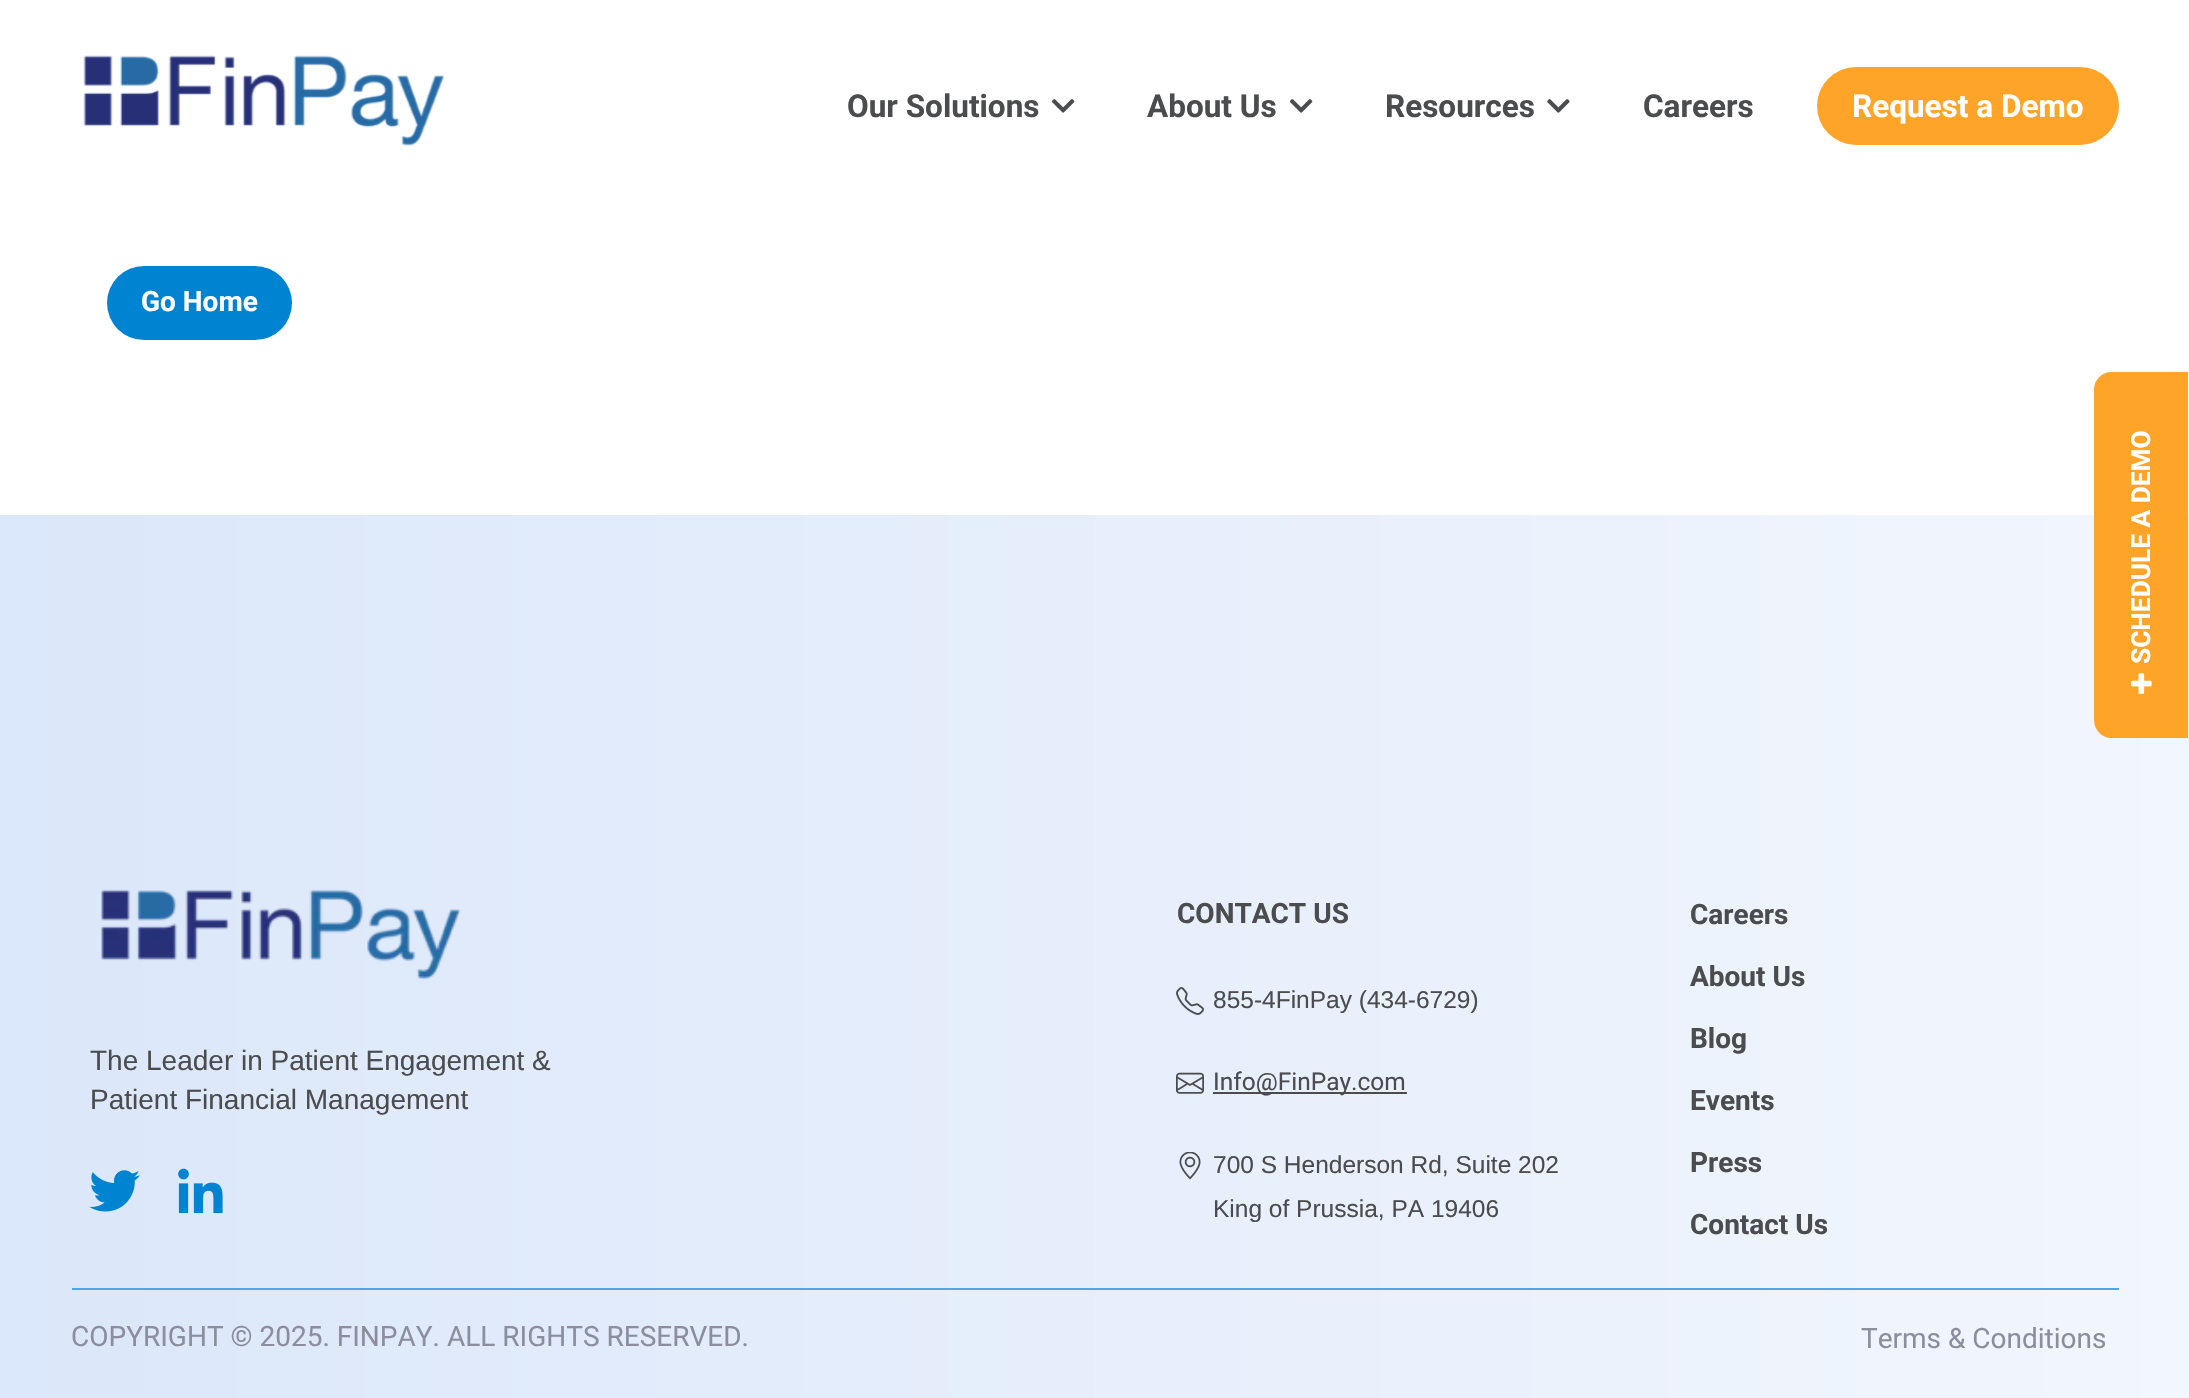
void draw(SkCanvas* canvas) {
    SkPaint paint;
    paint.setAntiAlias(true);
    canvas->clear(0xFFFFFFFF);
    canvas->drawImageRect(SkImages::DeferredFromEncodedData(SkData::MakeFromFileName("img1.png")), SkRect::MakeXYWH(83, 55, 362, 91), SkSamplingOptions());
    SkFont font1(fontMgr->matchFamilyStyle("Roboto", SkFontStyle::Bold()), 31.5f);
    font1.setSubpixel(true);
    paint.setColor(0xFF4B4C4E);
    canvas->drawString("Our Solutions", 847, 117, font1, paint);
    canvas->drawImageRect(SkImages::DeferredFromEncodedData(SkData::MakeFromFileName("img2.png")), SkRect::MakeXYWH(1051, 99, 24, 14), SkSamplingOptions());
    canvas->drawString("About Us", 1147, 117, font1, paint);
    canvas->drawImageRect(SkImages::DeferredFromEncodedData(SkData::MakeFromFileName("img2.png")), SkRect::MakeXYWH(1289, 99, 24, 14), SkSamplingOptions());
    canvas->drawString("Resources", 1385, 117, font1, paint);
    canvas->drawImageRect(SkImages::DeferredFromEncodedData(SkData::MakeFromFileName("img3.png")), SkRect::MakeXYWH(1547, 99, 23, 14), SkSamplingOptions());
    canvas->drawString("Careers", 1643, 117, font1, paint);
    paint.setColor(0xFFFDA429);
    canvas->drawRoundRect(SkRect::MakeXYWH(1817, 67, 302, 78), 39, 39, paint);
    paint.setColor(0xFFFFFFFF);
    canvas->drawString("Request a Demo", 1852, 117, font1, paint);
    paint.setColor(0xFF0083D1);
    canvas->drawRoundRect(SkRect::MakeXYWH(107, 266, 185, 74), 37, 37, paint);
    SkFont font2(fontMgr->matchFamilyStyle("Roboto", SkFontStyle::Bold()), 28);
    font2.setSubpixel(true);
    paint.setColor(0xFFFFFFFF);
    canvas->drawString("Go Home", 141, 311, font2, paint);
    {
        const SkColor colors[] = {0xFFDBE7FA, 0xFFF2F6FD};
        const float stops[] = {0, 1};
        const SkPoint ends[] = {{0, 959}, {2189, 959}};
        paint.setShader(SkGradientShader::MakeLinear(ends, colors, stops, 2, SkTileMode::kClamp));
        paint.setAlpha(255);
    }
    canvas->drawRect(SkRect::MakeXYWH(0, 515, 2189, 883), paint);
    paint.setShader(nullptr);
    paint.setColor(0xFFFDA429);
    canvas->drawPath(SkPathBuilder().moveTo(2094, 720).lineTo(2094, 389).cubicTo(2094, 380, 2102, 372, 2111, 372).lineTo(2188, 372).lineTo(2188, 738).lineTo(2111, 738).cubicTo(2102, 738, 2094, 730, 2094, 720).close().detach(), paint);
    SkFont font3(fontMgr->matchFamilyStyle("Roboto", SkFontStyle::Bold()), 26.25f);
    font3.setSubpixel(true);
    paint.setColor(0xFFFFFFFF);
    canvas->save();
    canvas->rotate(-90, 2150, 664);
    canvas->drawString("SCHEDULE A DEMO", 2150, 664, font3, paint);
    canvas->restore();
    canvas->drawImageRect(SkImages::DeferredFromEncodedData(SkData::MakeFromFileName("img4.png")), SkRect::MakeXYWH(2131, 673, 21, 21), SkSamplingOptions());
    canvas->drawImageRect(SkImages::DeferredFromEncodedData(SkData::MakeFromFileName("img5.png")), SkRect::MakeXYWH(101, 889, 360, 91), SkSamplingOptions());
    SkFont font4(fontMgr->matchFamilyStyle("Liberation Sans", SkFontStyle::Normal()), 28);
    font4.setSubpixel(true);
    paint.setColor(0xFF4B4C4E);
    canvas->drawString("The Leader in Patient Engagement &", 90, 1070, font4, paint);
    canvas->drawString("Patient Financial Management", 90, 1109, font4, paint);
    canvas->drawImageRect(SkImages::DeferredFromEncodedData(SkData::MakeFromFileName("img6.png")), SkRect::MakeXYWH(89, 1170, 51, 42), SkSamplingOptions());
    canvas->drawImageRect(SkImages::DeferredFromEncodedData(SkData::MakeFromFileName("img7.png")), SkRect::MakeXYWH(178, 1168, 45, 46), SkSamplingOptions());
    canvas->drawString("CONTACT US", 1177, 923, font2, paint);
    canvas->drawImageRect(SkImages::DeferredFromEncodedData(SkData::MakeFromFileName("img8.png")), SkRect::MakeXYWH(1176, 987, 28, 28), SkSamplingOptions());
    SkFont font5(fontMgr->matchFamilyStyle("Liberation Sans", SkFontStyle::Normal()), 24.5f);
    font5.setSubpixel(true);
    canvas->drawString("855-4FinPay (434-6729)", 1213, 1008, font5, paint);
    canvas->drawImageRect(SkImages::DeferredFromEncodedData(SkData::MakeFromFileName("img9.png")), SkRect::MakeXYWH(1176, 1072, 28, 22), SkSamplingOptions());
    canvas->drawRect(SkRect::MakeXYWH(1213, 1092, 194, 2), paint);
    SkFont font6(fontMgr->matchFamilyStyle("Roboto", SkFontStyle::Normal()), 24.5f);
    font6.setSubpixel(true);
    canvas->drawString("Info@FinPay.com", 1213, 1090, font6, paint);
    canvas->drawImageRect(SkImages::DeferredFromEncodedData(SkData::MakeFromFileName("img10.png")), SkRect::MakeXYWH(1179, 1152, 22, 28), SkSamplingOptions());
    canvas->drawString("700 S Henderson Rd, Suite 202", 1213, 1173, font5, paint);
    canvas->drawString("King of Prussia, PA 19406", 1213, 1217, font5, paint);
    canvas->drawString("Careers", 1690, 924, font2, paint);
    canvas->drawString("About Us", 1690, 986, font2, paint);
    canvas->drawString("Blog", 1690, 1048, font2, paint);
    canvas->drawString("Events", 1690, 1110, font2, paint);
    canvas->drawString("Press", 1690, 1172, font2, paint);
    canvas->drawString("Contact Us", 1690, 1234, font2, paint);
    paint.setColor(0xFF4BA6ED);
    canvas->drawRect(SkRect::MakeXYWH(72, 1288, 2047, 2), paint);
    SkFont font7(fontMgr->matchFamilyStyle("Roboto", SkFontStyle::Normal()), 28);
    font7.setSubpixel(true);
    paint.setColor(0xFF8C8E9E);
    canvas->drawString("COPYRIGHT © 2025. FINPAY. ALL RIGHTS RESERVED.", 71, 1346, font7, paint);
    canvas->drawString("Terms & Conditions", 1861, 1348, font7, paint);
}
